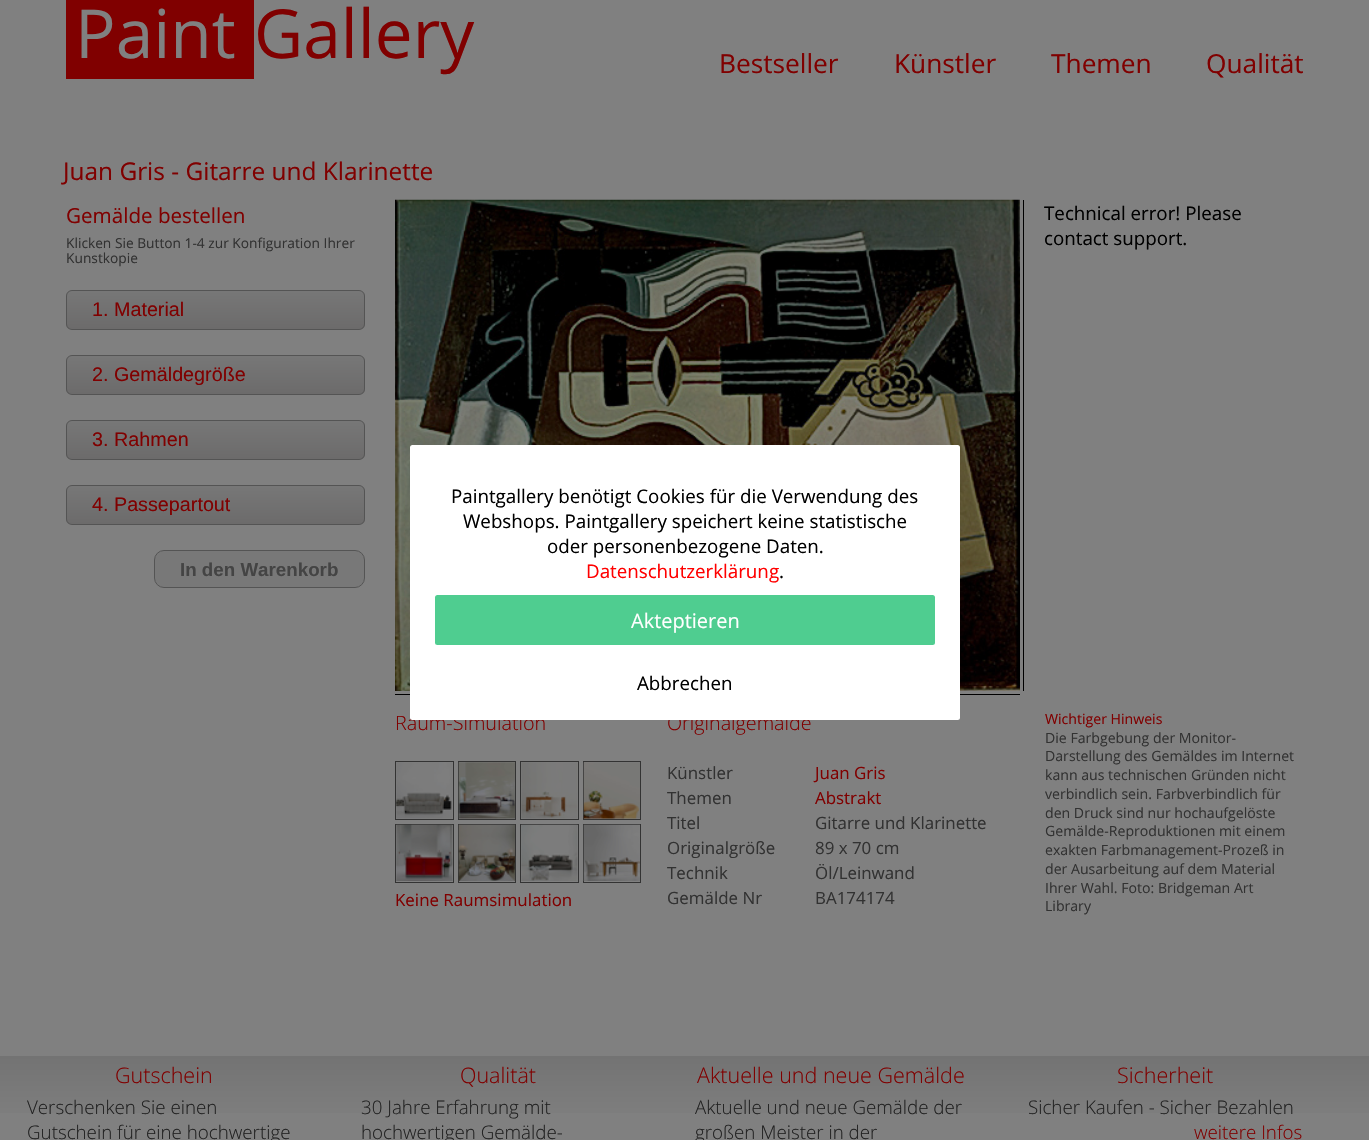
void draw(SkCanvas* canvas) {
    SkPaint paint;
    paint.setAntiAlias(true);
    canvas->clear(0xFF808080);
    paint.setColor(0xFF800000);
    canvas->drawRect(SkRect::MakeXYWH(66, 0, 188, 79), paint);
    SkFont font1(fontMgr->matchFamilyStyle("Open Sans", SkFontStyle::Normal()), 67.5f);
    font1.setSubpixel(true);
    paint.setColor(0xFF808080);
    canvas->drawString("Paint", 75, 58, font1, paint);
    paint.setColor(0xFF800000);
    canvas->drawString("Gallery", 254, 58, font1, paint);
    SkFont font2(fontMgr->matchFamilyStyle("Open Sans", SkFontStyle::Normal()), 26.25f);
    font2.setSubpixel(true);
    canvas->drawString("Bestseller", 719, 73, font2, paint);
    canvas->drawString("Künstler", 894, 73, font2, paint);
    canvas->drawString("Themen", 1051, 73, font2, paint);
    canvas->drawString("Qualität", 1206, 73, font2, paint);
    SkFont font3(fontMgr->matchFamilyStyle("Open Sans", SkFontStyle::Normal()), 24.4f);
    font3.setSubpixel(true);
    canvas->drawString("Juan Gris - Gitarre und Klarinette", 63, 180, font3, paint);
    SkFont font4(fontMgr->matchFamilyStyle("Open Sans", SkFontStyle::Normal()), 20.6f);
    font4.setSubpixel(true);
    canvas->drawString("Gemälde bestellen", 66, 223, font4, paint);
    SkFont font5(fontMgr->matchFamilyStyle("Open Sans", SkFontStyle::Normal()), 13.75f);
    font5.setSubpixel(true);
    paint.setColor(0xFF323232);
    canvas->drawString("Klicken Sie Button 1-4 zur Konfiguration Ihrer", 66, 248, font5, paint);
    canvas->drawString("Kunstkopie", 66, 263, font5, paint);
    canvas->save();
    canvas->clipPath(SkPathBuilder().moveTo(72, 290).lineTo(359, 290).cubicTo(362.5f, 290, 365, 292.5f, 365, 296).lineTo(365, 324).cubicTo(365, 327.5f, 362.5f, 330, 359, 330).lineTo(72, 330).cubicTo(68.5f, 330, 66, 327.5f, 66, 324).lineTo(66, 296).cubicTo(66, 292.5f, 68.5f, 290, 72, 290).close().detach(), true);
    {
        const SkColor colors[] = {0xFF777777, 0xFF6C6B6B};
        const float stops[] = {0, 1};
        const SkPoint ends[] = {{216, 291}, {216, 329}};
        paint.setShader(SkGradientShader::MakeLinear(ends, colors, stops, 2, SkTileMode::kClamp));
        paint.setAlpha(255);
    }
    canvas->drawRect(SkRect::MakeXYWH(66, 291, 299, 38), paint);
    canvas->restore();
    paint.setStyle(SkPaint::kStroke_Style);
    paint.setStrokeWidth(1);
    paint.setShader(nullptr);
    paint.setColor(0xFF545454);
    canvas->drawRoundRect(SkRect::MakeXYWH(66.5f, 290.5f, 298, 39), 5.5f, 5.5f, paint);
    SkFont font6(fontMgr->matchFamilyStyle("Liberation Sans", SkFontStyle::Normal()), 19.75f);
    font6.setSubpixel(true);
    paint.setStyle(SkPaint::kFill_Style);
    paint.setColor(0xFF800000);
    canvas->drawString("1. Material", 92, 316, font6, paint);
    canvas->save();
    canvas->clipPath(SkPathBuilder().moveTo(72, 355).lineTo(359, 355).cubicTo(362.5f, 355, 365, 357.5f, 365, 361).lineTo(365, 389).cubicTo(365, 392.5f, 362.5f, 395, 359, 395).lineTo(72, 395).cubicTo(68.5f, 395, 66, 392.5f, 66, 389).lineTo(66, 361).cubicTo(66, 357.5f, 68.5f, 355, 72, 355).close().detach(), true);
    {
        const SkColor colors[] = {0xFF777777, 0xFF6C6B6B};
        const float stops[] = {0, 1};
        const SkPoint ends[] = {{216, 356}, {216, 394}};
        paint.setShader(SkGradientShader::MakeLinear(ends, colors, stops, 2, SkTileMode::kClamp));
        paint.setAlpha(255);
    }
    canvas->drawRect(SkRect::MakeXYWH(66, 356, 299, 38), paint);
    canvas->restore();
    paint.setStyle(SkPaint::kStroke_Style);
    paint.setShader(nullptr);
    paint.setColor(0xFF545454);
    canvas->drawRoundRect(SkRect::MakeXYWH(66.5f, 355.5f, 298, 39), 5.5f, 5.5f, paint);
    paint.setStyle(SkPaint::kFill_Style);
    paint.setColor(0xFF800000);
    canvas->drawString("2. Gemäldegröße", 92, 381, font6, paint);
    canvas->save();
    canvas->clipPath(SkPathBuilder().moveTo(72, 420).lineTo(359, 420).cubicTo(362.5f, 420, 365, 422.5f, 365, 426).lineTo(365, 454).cubicTo(365, 457.5f, 362.5f, 460, 359, 460).lineTo(72, 460).cubicTo(68.5f, 460, 66, 457.5f, 66, 454).lineTo(66, 426).cubicTo(66, 422.5f, 68.5f, 420, 72, 420).close().detach(), true);
    {
        const SkColor colors[] = {0xFF777777, 0xFF6C6B6B};
        const float stops[] = {0, 1};
        const SkPoint ends[] = {{216, 421}, {216, 459}};
        paint.setShader(SkGradientShader::MakeLinear(ends, colors, stops, 2, SkTileMode::kClamp));
        paint.setAlpha(255);
    }
    canvas->drawRect(SkRect::MakeXYWH(66, 421, 299, 38), paint);
    canvas->restore();
    paint.setStyle(SkPaint::kStroke_Style);
    paint.setShader(nullptr);
    paint.setColor(0xFF545454);
    canvas->drawRoundRect(SkRect::MakeXYWH(66.5f, 420.5f, 298, 39), 5.5f, 5.5f, paint);
    paint.setStyle(SkPaint::kFill_Style);
    paint.setColor(0xFF800000);
    canvas->drawString("3. Rahmen", 92, 446, font6, paint);
    canvas->save();
    canvas->clipPath(SkPathBuilder().moveTo(72, 485).lineTo(359, 485).cubicTo(362.5f, 485, 365, 487.5f, 365, 491).lineTo(365, 519).cubicTo(365, 522.5f, 362.5f, 525, 359, 525).lineTo(72, 525).cubicTo(68.5f, 525, 66, 522.5f, 66, 519).lineTo(66, 491).cubicTo(66, 487.5f, 68.5f, 485, 72, 485).close().detach(), true);
    {
        const SkColor colors[] = {0xFF777777, 0xFF6C6B6B};
        const float stops[] = {0, 1};
        const SkPoint ends[] = {{216, 486}, {216, 524}};
        paint.setShader(SkGradientShader::MakeLinear(ends, colors, stops, 2, SkTileMode::kClamp));
        paint.setAlpha(255);
    }
    canvas->drawRect(SkRect::MakeXYWH(66, 486, 299, 38), paint);
    canvas->restore();
    paint.setStyle(SkPaint::kStroke_Style);
    paint.setShader(nullptr);
    paint.setColor(0xFF545454);
    canvas->drawRoundRect(SkRect::MakeXYWH(66.5f, 485.5f, 298, 39), 5.5f, 5.5f, paint);
    paint.setStyle(SkPaint::kFill_Style);
    paint.setColor(0xFF800000);
    canvas->drawString("4. Passepartout", 92, 511, font6, paint);
    paint.setColor(0xFF787878);
    canvas->drawRoundRect(SkRect::MakeXYWH(154.5f, 550.5f, 210, 37), 9.5f, 9.5f, paint);
    paint.setStyle(SkPaint::kStroke_Style);
    paint.setColor(0xFF545454);
    canvas->drawRoundRect(SkRect::MakeXYWH(154.5f, 550.5f, 210, 37), 9.5f, 9.5f, paint);
    SkFont font7(fontMgr->matchFamilyStyle("Liberation Sans", SkFontStyle::Bold()), 18.75f);
    font7.setSubpixel(true);
    paint.setStyle(SkPaint::kFill_Style);
    paint.setColor(0xFF444444);
    canvas->drawString("In den Warenkorb", 180, 576, font7, paint);
    canvas->drawImageRect(SkImages::DeferredFromEncodedData(SkData::MakeFromFileName("img1.png")), SkRect::MakeXYWH(395, 199, 625, 492), SkSamplingOptions());
    paint.setColor(0xFF000000);
    canvas->drawRect(SkRect::MakeXYWH(1023, 200, 1, 491), paint);
    canvas->drawRect(SkRect::MakeXYWH(395, 694, 625, 1), paint);
    SkFont font8(fontMgr->matchFamilyStyle("Open Sans", SkFontStyle::Normal()), 18.75f);
    font8.setSubpixel(true);
    canvas->drawString("Technical error! Please", 1044, 220, font8, paint);
    canvas->drawString("contact support.", 1044, 245, font8, paint);
    SkFont font9(fontMgr->matchFamilyStyle("Open Sans", SkFontStyle(300, SkFontStyle::kNormal_Width, SkFontStyle::kUpright_Slant)), 19.75f);
    font9.setSubpixel(true);
    paint.setColor(0xFF800000);
    canvas->drawString("Raum-Simulation", 395, 730, font9, paint);
    paint.setStyle(SkPaint::kStroke_Style);
    paint.setColor(0xFF333333);
    canvas->drawRect(SkRect::MakeXYWH(395.5f, 761.5f, 58, 58), paint);
    canvas->drawImageRect(SkImages::DeferredFromEncodedData(SkData::MakeFromFileName("img2.png")), SkRect::MakeXYWH(396, 762, 57, 57), SkSamplingOptions());
    canvas->drawRect(SkRect::MakeXYWH(458.5f, 761.5f, 57, 58), paint);
    canvas->drawImageRect(SkImages::DeferredFromEncodedData(SkData::MakeFromFileName("img3.png")), SkRect::MakeXYWH(458, 762, 57, 57), SkSamplingOptions());
    canvas->drawRect(SkRect::MakeXYWH(520.5f, 761.5f, 58, 58), paint);
    canvas->drawImageRect(SkImages::DeferredFromEncodedData(SkData::MakeFromFileName("img4.png")), SkRect::MakeXYWH(521, 762, 57, 57), SkSamplingOptions());
    canvas->drawRect(SkRect::MakeXYWH(583.5f, 761.5f, 57, 58), paint);
    canvas->drawImageRect(SkImages::DeferredFromEncodedData(SkData::MakeFromFileName("img5.png")), SkRect::MakeXYWH(583, 762, 57, 57), SkSamplingOptions());
    canvas->drawRect(SkRect::MakeXYWH(395.5f, 824.5f, 58, 58), paint);
    canvas->drawImageRect(SkImages::DeferredFromEncodedData(SkData::MakeFromFileName("img6.png")), SkRect::MakeXYWH(396, 824, 57, 57), SkSamplingOptions());
    canvas->drawRect(SkRect::MakeXYWH(458.5f, 824.5f, 57, 58), paint);
    canvas->drawImageRect(SkImages::DeferredFromEncodedData(SkData::MakeFromFileName("img7.png")), SkRect::MakeXYWH(458, 824, 57, 57), SkSamplingOptions());
    canvas->drawRect(SkRect::MakeXYWH(520.5f, 824.5f, 58, 58), paint);
    canvas->drawImageRect(SkImages::DeferredFromEncodedData(SkData::MakeFromFileName("img8.png")), SkRect::MakeXYWH(521, 824, 57, 57), SkSamplingOptions());
    canvas->drawRect(SkRect::MakeXYWH(583.5f, 824.5f, 57, 58), paint);
    canvas->drawImageRect(SkImages::DeferredFromEncodedData(SkData::MakeFromFileName("img9.png")), SkRect::MakeXYWH(583, 824, 57, 57), SkSamplingOptions());
    SkFont font10(fontMgr->matchFamilyStyle("Open Sans", SkFontStyle::Normal()), 16.9f);
    font10.setSubpixel(true);
    paint.setStyle(SkPaint::kFill_Style);
    paint.setColor(0xFF800000);
    canvas->drawString("Keine Raumsimulation", 395, 906, font10, paint);
    canvas->drawString("Originalgemälde", 667, 730, font9, paint);
    paint.setColor(0xFF323232);
    canvas->drawString("Künstler", 667, 779, font10, paint);
    paint.setColor(0xFF800000);
    canvas->drawString("Juan Gris", 815, 779, font10, paint);
    paint.setColor(0xFF323232);
    canvas->drawString("Themen", 667, 804, font10, paint);
    paint.setColor(0xFF800000);
    canvas->drawString("Abstrakt", 815, 804, font10, paint);
    paint.setColor(0xFF323232);
    canvas->drawString("Titel", 667, 829, font10, paint);
    canvas->drawString("Gitarre und Klarinette", 815, 829, font10, paint);
    canvas->drawString("Originalgröße", 667, 854, font10, paint);
    canvas->drawString("89 x 70 cm", 815, 854, font10, paint);
    canvas->drawString("Technik", 667, 879, font10, paint);
    canvas->drawString("Öl/Leinwand", 815, 879, font10, paint);
    canvas->drawString("Gemälde Nr", 667, 904, font10, paint);
    canvas->drawString("BA174174", 815, 904, font10, paint);
    SkFont font11(fontMgr->matchFamilyStyle("Open Sans", SkFontStyle::Normal()), 14.1f);
    font11.setSubpixel(true);
    paint.setColor(0xFF800000);
    canvas->drawString("Wichtiger Hinweis", 1045, 724, font11, paint);
    paint.setColor(0xFF323232);
    canvas->drawString("Die Farbgebung der Monitor-", 1045, 743, font11, paint);
    canvas->drawString("Darstellung des Gemäldes im Internet", 1045, 761, font11, paint);
    canvas->drawString("kann aus technischen Gründen nicht", 1045, 780, font11, paint);
    canvas->drawString("verbindlich sein. Farbverbindlich für", 1045, 799, font11, paint);
    canvas->drawString("den Druck sind nur hochaufgelöste", 1045, 818, font11, paint);
    canvas->drawString("Gemälde-Reproduktionen mit einem", 1045, 836, font11, paint);
    canvas->drawString("exakten Farbmanagement-Prozeß in", 1045, 855, font11, paint);
    canvas->drawString("der Ausarbeitung auf dem Material", 1045, 874, font11, paint);
    canvas->drawString("Ihrer Wahl. Foto: Bridgeman Art", 1045, 893, font11, paint);
    canvas->drawString("Library", 1045, 911, font11, paint);
    paint.setColor(0xFFFFFFFF);
    canvas->drawRoundRect(SkRect::MakeXYWH(410, 445, 550, 275), 2.5f, 2.5f, paint);
    paint.setColor(0xFF000000);
    canvas->drawString("Paintgallery benötigt Cookies für die Verwendung des", 451, 503, font8, paint);
    canvas->drawString("Webshops. Paintgallery speichert keine statistische", 463, 528, font8, paint);
    canvas->drawString("oder personenbezogene Daten.", 547, 553, font8, paint);
    paint.setColor(0xFFFF0000);
    canvas->drawString("Datenschutzerklärung", 586, 578, font8, paint);
    paint.setColor(0xFF000000);
    canvas->drawString(".", 779, 578, font8, paint);
    paint.setColor(0xFF4FCD90);
    canvas->drawRoundRect(SkRect::MakeXYWH(435, 595, 500, 50), 2.5f, 2.5f, paint);
    SkFont font12(fontMgr->matchFamilyStyle("Open Sans", SkFontStyle::Normal()), 20);
    font12.setSubpixel(true);
    paint.setColor(0xFFFFFFFF);
    canvas->drawString("Akteptieren", 631, 628, font12, paint);
    paint.setColor(0xFF000000);
    canvas->drawString("Abbrechen", 637, 690, font8, paint);
    {
        const SkColor colors[] = {0xFF737373, 0xFF808080, 0xFF808080};
        const float stops[] = {0, 0.5f, 1};
        const SkPoint ends[] = {{685, 1056}, {685, 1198}};
        paint.setShader(SkGradientShader::MakeLinear(ends, colors, stops, 3, SkTileMode::kClamp));
        paint.setAlpha(255);
    }
    canvas->drawRect(SkRect::MakeXYWH(0, 1056, 1369, 57), paint);
    SkFont font13(fontMgr->matchFamilyStyle("Open Sans", SkFontStyle(300, SkFontStyle::kNormal_Width, SkFontStyle::kUpright_Slant)), 21.5f);
    font13.setSubpixel(true);
    paint.setShader(nullptr);
    paint.setColor(0xFF800000);
    canvas->drawString("Gutschein", 115, 1083, font13, paint);
    SkFont font14(fontMgr->matchFamilyStyle("Open Sans", SkFontStyle(300, SkFontStyle::kNormal_Width, SkFontStyle::kUpright_Slant)), 18.75f);
    font14.setSubpixel(true);
    paint.setColor(0xFF222222);
    canvas->drawString("Verschenken Sie einen", 27, 1114, font14, paint);
    canvas->drawString("Gutschein für eine hochwertige", 27, 1139, font14, paint);
    paint.setColor(0xFF800000);
    canvas->drawString("Qualität", 460, 1083, font13, paint);
    paint.setColor(0xFF222222);
    canvas->drawString("30 Jahre Erfahrung mit", 361, 1114, font14, paint);
    canvas->drawString("hochwertigen Gemälde-", 361, 1139, font14, paint);
    paint.setColor(0xFF800000);
    canvas->drawString("Aktuelle und neue Gemälde", 697, 1083, font13, paint);
    paint.setColor(0xFF222222);
    canvas->drawString("Aktuelle und neue Gemälde der", 695, 1114, font14, paint);
    canvas->drawString("großen Meister in der", 695, 1139, font14, paint);
    paint.setColor(0xFF800000);
    canvas->drawString("Sicherheit", 1117, 1083, font13, paint);
    paint.setColor(0xFF222222);
    canvas->drawString("Sicher Kaufen - Sicher Bezahlen", 1028, 1114, font14, paint);
    paint.setColor(0xFF800000);
    canvas->drawString("weitere Infos", 1194, 1139, font14, paint);
}
